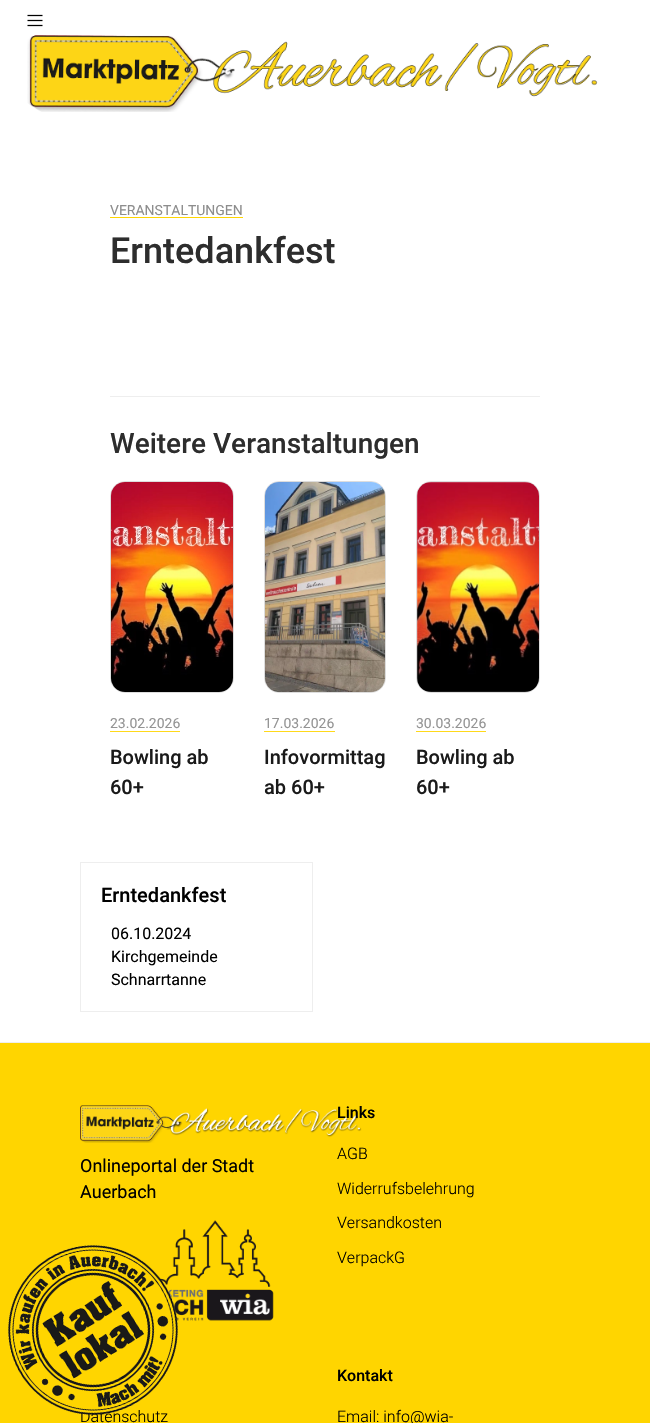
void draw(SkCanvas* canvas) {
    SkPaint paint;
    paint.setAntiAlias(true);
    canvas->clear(0xFFFFFFFF);
    canvas->drawImageRect(SkImages::DeferredFromEncodedData(SkData::MakeFromFileName("img1.png")), SkRect::MakeXYWH(27, 14, 16, 13), SkSamplingOptions());
    canvas->drawImageRect(SkImages::DeferredFromEncodedData(SkData::MakeFromFileName("img2.png")), SkRect::MakeXYWH(27, 35, 571, 77), SkSamplingOptions());
    SkFont font1(fontMgr->matchFamilyStyle("Roboto", SkFontStyle::Normal()), 14);
    font1.setSubpixel(true);
    paint.setColor(0xFF8D8D8D);
    canvas->drawString("VERANSTALTUNGEN", 110, 215, font1, paint);
    paint.setColor(0xFFFFD500);
    canvas->drawRect(SkRect::MakeXYWH(110, 217, 133, 1), paint);
    SkFont font2(fontMgr->matchFamilyStyle("Roboto", SkFontStyle(500, SkFontStyle::kNormal_Width, SkFontStyle::kUpright_Slant)), 36);
    font2.setSubpixel(true);
    paint.setColor(0xFF2D2D2D);
    canvas->drawString("Erntedankfest", 110, 263, font2, paint);
    paint.setColor(0xFFEEEEEE);
    canvas->drawRect(SkRect::MakeXYWH(110, 396, 430, 1), paint);
    SkFont font3(fontMgr->matchFamilyStyle("Roboto", SkFontStyle(500, SkFontStyle::kNormal_Width, SkFontStyle::kUpright_Slant)), 28);
    font3.setSubpixel(true);
    paint.setColor(0xFF2D2D2D);
    canvas->drawString("Weitere Veranstaltungen", 110, 453, font3, paint);
    paint.setStyle(SkPaint::kStroke_Style);
    paint.setStrokeWidth(1);
    paint.setColor(0xFFDDDDDD);
    canvas->drawRoundRect(SkRect::MakeXYWH(110.5f, 481.5f, 123, 211), 14.5f, 14.5f, paint);
    canvas->drawImageRect(SkImages::DeferredFromEncodedData(SkData::MakeFromFileName("img3.png")), SkRect::MakeXYWH(111, 482, 122, 210), SkSamplingOptions());
    paint.setStyle(SkPaint::kFill_Style);
    paint.setColor(0xFF949494);
    canvas->drawString("23.02.2026", 110, 728, font1, paint);
    paint.setColor(0xFFFFD91A);
    canvas->drawRect(SkRect::MakeXYWH(110, 731, 70, 1), paint);
    SkFont font4(fontMgr->matchFamilyStyle("Roboto", SkFontStyle(500, SkFontStyle::kNormal_Width, SkFontStyle::kUpright_Slant)), 20);
    font4.setSubpixel(true);
    paint.setColor(0xFF1A1A1A);
    canvas->drawString("Bowling ab", 110, 764, font4, paint);
    canvas->drawString("60+", 110, 794, font4, paint);
    paint.setStyle(SkPaint::kStroke_Style);
    paint.setColor(0xFFDDDDDD);
    canvas->drawRoundRect(SkRect::MakeXYWH(264.5f, 481.5f, 121, 211), 14.5f, 14.5f, paint);
    canvas->drawImageRect(SkImages::DeferredFromEncodedData(SkData::MakeFromFileName("img4.png")), SkRect::MakeXYWH(265, 482, 120, 210), SkSamplingOptions());
    paint.setStyle(SkPaint::kFill_Style);
    paint.setColor(0xFF949494);
    canvas->drawString("17.03.2026", 264, 728, font1, paint);
    paint.setColor(0xFFFFD91A);
    canvas->drawRect(SkRect::MakeXYWH(264, 731, 71, 1), paint);
    paint.setColor(0xFF1A1A1A);
    canvas->drawString("Infovormittag", 264, 764, font4, paint);
    canvas->drawString("ab 60+", 264, 794, font4, paint);
    paint.setStyle(SkPaint::kStroke_Style);
    paint.setColor(0xFFDDDDDD);
    canvas->drawRoundRect(SkRect::MakeXYWH(416.5f, 481.5f, 123, 211), 14.5f, 14.5f, paint);
    canvas->drawImageRect(SkImages::DeferredFromEncodedData(SkData::MakeFromFileName("img5.png")), SkRect::MakeXYWH(417, 482, 122, 210), SkSamplingOptions());
    paint.setStyle(SkPaint::kFill_Style);
    paint.setColor(0xFF949494);
    canvas->drawString("30.03.2026", 416, 728, font1, paint);
    paint.setColor(0xFFFFD91A);
    canvas->drawRect(SkRect::MakeXYWH(416, 731, 70, 1), paint);
    paint.setColor(0xFF1A1A1A);
    canvas->drawString("Bowling ab", 416, 764, font4, paint);
    canvas->drawString("60+", 416, 794, font4, paint);
    paint.setStyle(SkPaint::kStroke_Style);
    paint.setColor(0xFFEEEEEE);
    canvas->drawRect(SkRect::MakeXYWH(80.5f, 862.5f, 232, 149), paint);
    paint.setStyle(SkPaint::kFill_Style);
    paint.setColor(0xFF000000);
    canvas->drawString("Erntedankfest", 101, 902, font4, paint);
    SkFont font5(fontMgr->matchFamilyStyle("Roboto", SkFontStyle::Normal()), 16);
    font5.setSubpixel(true);
    canvas->drawString("06.10.2024", 111, 939, font5, paint);
    canvas->drawString("Kirchgemeinde", 111, 962, font5, paint);
    canvas->drawString("Schnarrtanne", 111, 985, font5, paint);
    paint.setColor(0xFFFFD500);
    canvas->drawRect(SkRect::MakeXYWH(0, 1043, 650, 380), paint);
    paint.setColor(0xFFEEEEEE);
    canvas->drawRect(SkRect::MakeXYWH(0, 1042, 650, 1), paint);
    canvas->drawImageRect(SkImages::DeferredFromEncodedData(SkData::MakeFromFileName("img6.png")), SkRect::MakeXYWH(80, 1105, 282, 38), SkSamplingOptions());
    SkFont font6(fontMgr->matchFamilyStyle("Roboto", SkFontStyle::Normal()), 18);
    font6.setSubpixel(true);
    paint.setColor(0xFF000000);
    canvas->drawString("Onlineportal der Stadt", 80, 1172, font6, paint);
    canvas->drawString("Auerbach", 80, 1198, font6, paint);
    canvas->drawImageRect(SkImages::DeferredFromEncodedData(SkData::MakeFromFileName("img7.png")), SkRect::MakeXYWH(160, 1220, 114, 101), SkSamplingOptions());
    SkFont font7(fontMgr->matchFamilyStyle("Roboto", SkFontStyle(500, SkFontStyle::kNormal_Width, SkFontStyle::kUpright_Slant)), 16);
    font7.setSubpixel(true);
    canvas->drawString("Links", 337, 1118, font7, paint);
    SkFont font8(fontMgr->matchFamilyStyle("Roboto", SkFontStyle(300, SkFontStyle::kNormal_Width, SkFontStyle::kUpright_Slant)), 16);
    font8.setSubpixel(true);
    canvas->drawString("AGB", 337, 1159, font8, paint);
    canvas->drawString("Widerrufsbelehrung", 337, 1194, font8, paint);
    canvas->drawString("Versandkosten", 337, 1228, font8, paint);
    canvas->drawString("VerpackG", 337, 1263, font8, paint);
    canvas->drawString("Datenschutz", 80, 1422, font8, paint);
    canvas->drawString("Kontakt", 337, 1381, font7, paint);
    canvas->drawString("Email: info@wia-", 337, 1422, font8, paint);
    canvas->drawImageRect(SkImages::DeferredFromEncodedData(SkData::MakeFromFileName("img8.png")), SkRect::MakeXYWH(8, 1245, 170, 170), SkSamplingOptions());
}
